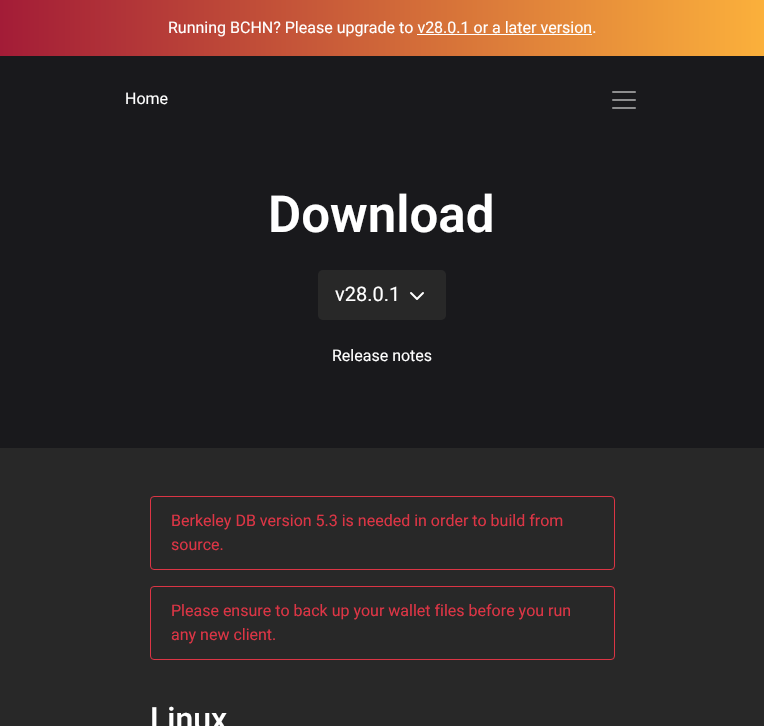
void draw(SkCanvas* canvas) {
    SkPaint paint;
    paint.setAntiAlias(true);
    canvas->clear(0xFF19191C);
    {
        const SkColor colors[] = {0xFFA31C37, 0xFFFBB03B};
        const float stops[] = {0, 1};
        const SkPoint ends[] = {{0, 28}, {764, 28}};
        paint.setShader(SkGradientShader::MakeLinear(ends, colors, stops, 2, SkTileMode::kClamp));
        paint.setAlpha(255);
    }
    canvas->drawRect(SkRect::MakeXYWH(0, 0, 764, 56), paint);
    SkFont font1(fontMgr->matchFamilyStyle("Roboto", SkFontStyle::Normal()), 16);
    font1.setSubpixel(true);
    paint.setShader(nullptr);
    paint.setColor(0xFFFFFFFF);
    canvas->drawString("Running BCHN? Please upgrade to v28.0.1 or a later version.", 168, 33, font1, paint);
    canvas->drawRect(SkRect::MakeXYWH(417, 34, 175, 1), paint);
    canvas->drawString("Home", 125, 104, font1, paint);
    canvas->drawImageRect(SkImages::DeferredFromEncodedData(SkData::MakeFromFileName("img1.png")), SkRect::MakeXYWH(612, 91, 24, 18), SkSamplingOptions());
    SkFont font2(fontMgr->matchFamilyStyle("Roboto", SkFontStyle(600, SkFontStyle::kNormal_Width, SkFontStyle::kUpright_Slant)), 51);
    font2.setSubpixel(true);
    canvas->drawString("Download", 268, 232, font2, paint);
    paint.setColor(0xFF282828);
    canvas->drawRoundRect(SkRect::MakeXYWH(318, 270, 128, 50), 5, 5, paint);
    SkFont font3(fontMgr->matchFamilyStyle("Roboto", SkFontStyle::Normal()), 20);
    font3.setSubpixel(true);
    paint.setColor(0xFFFFFFFF);
    canvas->drawString("v28.0.1", 335, 301, font3, paint);
    paint.setStyle(SkPaint::kStroke_Style);
    paint.setStrokeWidth(2);
    paint.setStrokeCap(SkPaint::kRound_Cap);
    paint.setStrokeJoin(SkPaint::kRound_Join);
    canvas->drawPath(SkPathBuilder().moveTo(411, 293).lineTo(417, 299).lineTo(423, 293).detach(), paint);
    paint.setStyle(SkPaint::kFill_Style);
    canvas->drawString("Release notes", 332, 361, font1, paint);
    paint.setColor(0xFF282828);
    canvas->drawRect(SkRect::MakeXYWH(0, 448, 764, 278), paint);
    paint.setStyle(SkPaint::kStroke_Style);
    paint.setStrokeWidth(1);
    paint.setStrokeCap(SkPaint::kButt_Cap);
    paint.setStrokeJoin(SkPaint::kMiter_Join);
    paint.setColor(0xFFDC3545);
    canvas->drawRoundRect(SkRect::MakeXYWH(150.5f, 496.5f, 464, 73), 3.5f, 3.5f, paint);
    paint.setStyle(SkPaint::kFill_Style);
    canvas->drawString("Berkeley DB version 5.3 is needed in order to build from", 171, 526, font1, paint);
    canvas->drawString("source.", 171, 550, font1, paint);
    paint.setStyle(SkPaint::kStroke_Style);
    canvas->drawRoundRect(SkRect::MakeXYWH(150.5f, 586.5f, 464, 73), 3.5f, 3.5f, paint);
    paint.setStyle(SkPaint::kFill_Style);
    canvas->drawString("Please ensure to back up your wallet files before you run", 171, 616, font1, paint);
    canvas->drawString("any new client.", 171, 640, font1, paint);
    SkFont font4(fontMgr->matchFamilyStyle("Roboto", SkFontStyle(500, SkFontStyle::kNormal_Width, SkFontStyle::kUpright_Slant)), 32);
    font4.setSubpixel(true);
    paint.setColor(0xFFFFFFFF);
    canvas->drawString("Linux", 150, 730, font4, paint);
}
